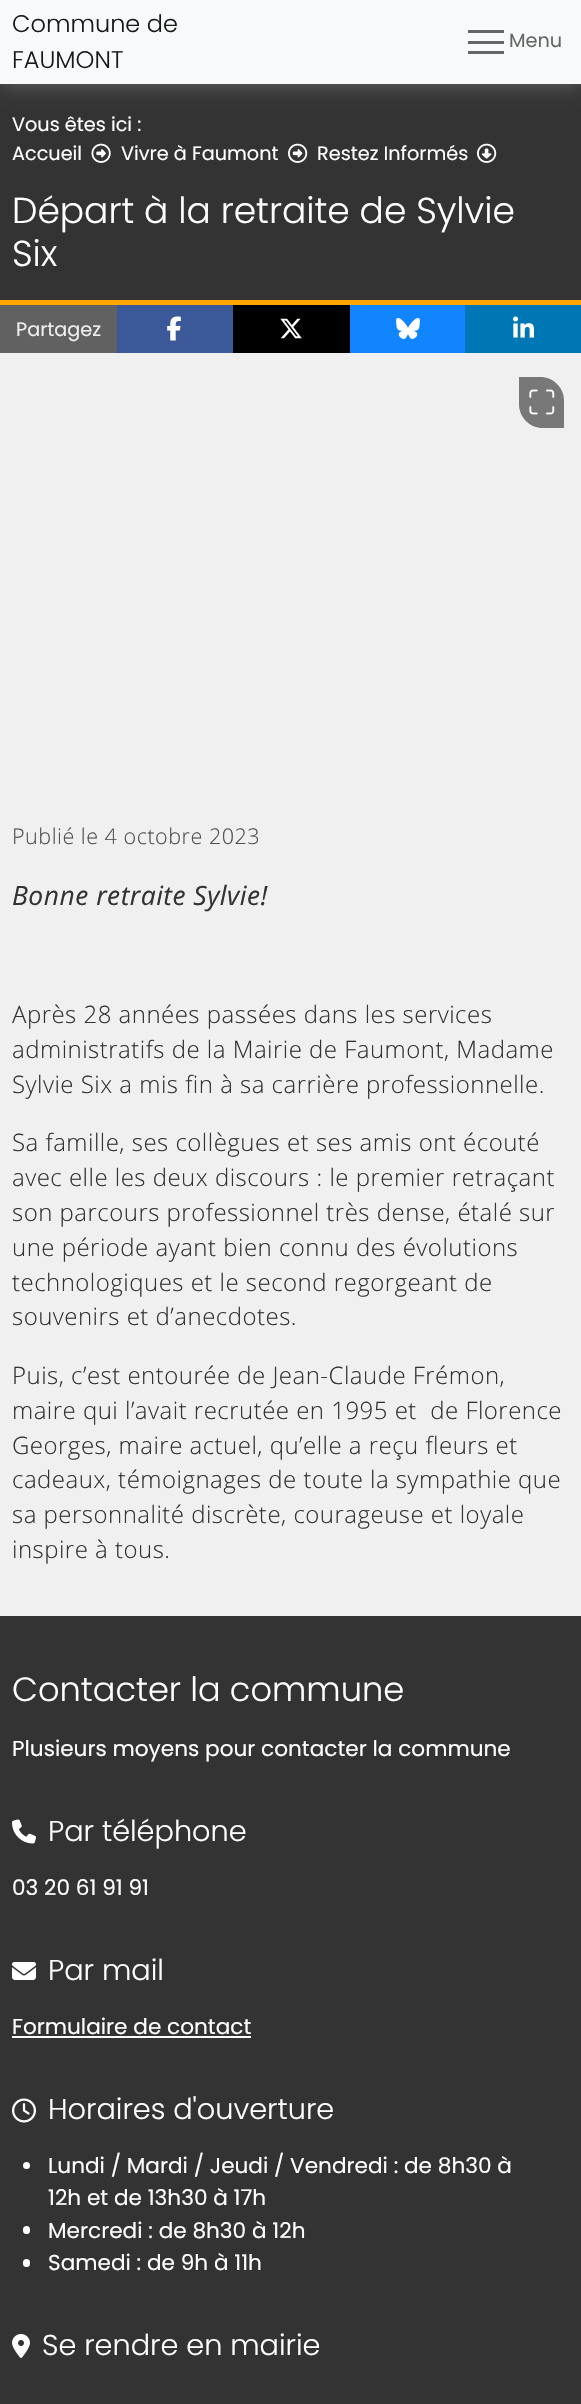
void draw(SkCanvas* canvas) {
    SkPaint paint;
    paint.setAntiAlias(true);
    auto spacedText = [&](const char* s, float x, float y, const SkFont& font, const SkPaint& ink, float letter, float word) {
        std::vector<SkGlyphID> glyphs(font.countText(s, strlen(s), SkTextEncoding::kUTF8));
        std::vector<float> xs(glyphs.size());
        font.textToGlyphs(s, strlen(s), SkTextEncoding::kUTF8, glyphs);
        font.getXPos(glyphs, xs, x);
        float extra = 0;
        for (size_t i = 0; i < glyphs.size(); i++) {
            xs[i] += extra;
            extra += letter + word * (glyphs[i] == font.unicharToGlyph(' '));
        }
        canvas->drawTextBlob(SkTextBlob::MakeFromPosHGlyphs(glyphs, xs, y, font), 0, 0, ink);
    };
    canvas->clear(0xFFF0F0F0);
    paint.setColor(0xFF333333);
    canvas->drawRect(SkRect::MakeXYWH(0, 84, 581, 216), paint);
    paint.setColor(0xFF666666);
    paint.setMaskFilter(SkMaskFilter::MakeBlur(kNormal_SkBlurStyle, 11));
    canvas->drawRect(SkRect::MakeXYWH(0, 0, 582, 84), paint);
    paint.setMaskFilter(nullptr);
    paint.setColor(0xFFF8F9FA);
    canvas->drawRect(SkRect::MakeXYWH(0, 0, 581, 84), paint);
    SkFont font1(fontMgr->matchFamilyStyle("Poppins", SkFontStyle(300, SkFontStyle::kNormal_Width, SkFontStyle::kUpright_Slant)), 24);
    font1.setSubpixel(true);
    paint.setColor(0xFF191919);
    canvas->drawString("Commune de", 12, 32, font1, paint);
    canvas->drawString("FAUMONT", 12, 68, font1, paint);
    paint.setColor(0xFF666666);
    canvas->drawRect(SkRect::MakeXYWH(468, 30, 36, 3), paint);
    canvas->drawRect(SkRect::MakeXYWH(468, 41, 36, 3), paint);
    canvas->drawRect(SkRect::MakeXYWH(468, 51, 36, 3), paint);
    SkFont font2(fontMgr->matchFamilyStyle("Poppins", SkFontStyle::Normal()), 19.25f);
    font2.setSubpixel(true);
    canvas->drawString("Menu", 509, 47, font2, paint);
    paint.setColor(0xFFFFFFFF);
    canvas->drawString("Vous êtes ici :", 12, 131, font2, paint);
    canvas->drawString("Accueil", 12, 160, font2, paint);
    canvas->drawImageRect(SkImages::DeferredFromEncodedData(SkData::MakeFromFileName("img1.png")), SkRect::MakeXYWH(91, 143, 20, 20), SkSamplingOptions());
    canvas->drawString("Vivre à Faumont", 121, 160, font2, paint);
    canvas->drawImageRect(SkImages::DeferredFromEncodedData(SkData::MakeFromFileName("img2.png")), SkRect::MakeXYWH(288, 143, 20, 20), SkSamplingOptions());
    canvas->drawString("Restez Informés", 317, 160, font2, paint);
    canvas->drawImageRect(SkImages::DeferredFromEncodedData(SkData::MakeFromFileName("img3.png")), SkRect::MakeXYWH(477, 143, 20, 20), SkSamplingOptions());
    SkFont font3(fontMgr->matchFamilyStyle("Poppins", SkFontStyle(300, SkFontStyle::kNormal_Width, SkFontStyle::kUpright_Slant)), 36);
    font3.setSubpixel(true);
    canvas->drawString("Départ à la retraite de Sylvie", 12, 223, font3, paint);
    canvas->drawString("Six", 12, 266, font3, paint);
    paint.setColor(0xFFFFA500);
    canvas->drawRect(SkRect::MakeXYWH(0, 300, 581, 5), paint);
    paint.setColor(0xFF616161);
    canvas->drawRect(SkRect::MakeXYWH(0, 305, 117, 48), paint);
    paint.setColor(0xFFEEEEEE);
    canvas->drawString("Partagez", 16, 336, font2, paint);
    paint.setColor(0xFF3B5998);
    canvas->drawRect(SkRect::MakeXYWH(117, 305, 116, 48), paint);
    canvas->drawImageRect(SkImages::DeferredFromEncodedData(SkData::MakeFromFileName("img4.png")), SkRect::MakeXYWH(167, 316, 14, 25), SkSamplingOptions());
    paint.setColor(0xFF000000);
    canvas->drawRect(SkRect::MakeXYWH(233, 305, 117, 48), paint);
    canvas->drawImageRect(SkImages::DeferredFromEncodedData(SkData::MakeFromFileName("img5.png")), SkRect::MakeXYWH(280, 318, 22, 21), SkSamplingOptions());
    paint.setColor(0xFF1185FE);
    canvas->drawRect(SkRect::MakeXYWH(350, 305, 115, 48), paint);
    canvas->drawImageRect(SkImages::DeferredFromEncodedData(SkData::MakeFromFileName("img6.png")), SkRect::MakeXYWH(396, 318, 24, 21), SkSamplingOptions());
    paint.setColor(0xFF0077B5);
    canvas->drawRect(SkRect::MakeXYWH(465, 305, 116, 48), paint);
    canvas->drawImageRect(SkImages::DeferredFromEncodedData(SkData::MakeFromFileName("img7.png")), SkRect::MakeXYWH(513, 316, 21, 22), SkSamplingOptions());
    paint.setColor(0xFF787878);
    canvas->drawPath(SkPathBuilder().moveTo(519, 377).lineTo(540, 377).cubicTo(553.5f, 377, 564, 387.5f, 564, 401).lineTo(564, 428).lineTo(543, 428).cubicTo(529.5f, 428, 519, 417.5f, 519, 404).close().detach(), paint);
    canvas->drawImageRect(SkImages::DeferredFromEncodedData(SkData::MakeFromFileName("img8.png")), SkRect::MakeXYWH(529, 389, 26, 26), SkSamplingOptions());
    SkFont font4(fontMgr->matchFamilyStyle("Open Sans", SkFontStyle(300, SkFontStyle::kNormal_Width, SkFontStyle::kUpright_Slant)), 21.6f);
    font4.setSubpixel(true);
    paint.setColor(0xFF505050);
    spacedText("Publié le 4 octobre 2023", 12, 844, font4, paint, 0.48f, 0);
    SkFont font5(fontMgr->matchFamilyStyle("Open Sans", SkFontStyle::Italic()), 26.5f);
    font5.setSubpixel(true);
    paint.setColor(0xFF333333);
    spacedText("Bonne retraite Sylvie!", 12, 905, font5, paint, 0.48f, 0);
    SkFont font6(fontMgr->matchFamilyStyle("Open Sans", SkFontStyle(300, SkFontStyle::kNormal_Width, SkFontStyle::kUpright_Slant)), 24);
    font6.setSubpixel(true);
    spacedText("Après 28 années passées dans les services", 12, 1023, font6, paint, 0.48f, 0);
    spacedText("administratifs de la Mairie de Faumont, Madame", 12, 1058, font6, paint, 0.48f, 0);
    spacedText("Sylvie Six a mis fin à sa carrière professionnelle.", 12, 1093, font6, paint, 0.48f, 0);
    spacedText("Sa famille, ses collègues et ses amis ont écouté", 12, 1151, font6, paint, 0.48f, 0);
    spacedText("avec elle les deux discours : le premier retraçant", 12, 1186, font6, paint, 0.48f, 0);
    spacedText("son parcours professionnel très dense, étalé sur", 12, 1221, font6, paint, 0.48f, 0);
    spacedText("une période ayant bien connu des évolutions", 12, 1256, font6, paint, 0.48f, 0);
    spacedText("technologiques et le second regorgeant de", 12, 1291, font6, paint, 0.48f, 0);
    spacedText("souvenirs et d’anecdotes.", 12, 1325, font6, paint, 0.48f, 0);
    spacedText("Puis, c’est entourée de Jean-Claude Frémon,", 12, 1384, font6, paint, 0.48f, 0);
    spacedText("maire qui l’avait recrutée en 1995 et  de Florence", 12, 1419, font6, paint, 0.48f, 0);
    spacedText("Georges, maire actuel, qu’elle a reçu fleurs et", 12, 1454, font6, paint, 0.48f, 0);
    spacedText("cadeaux, témoignages de toute la sympathie que", 12, 1488, font6, paint, 0.48f, 0);
    spacedText("sa personnalité discrète, courageuse et loyale", 12, 1523, font6, paint, 0.48f, 0);
    spacedText("inspire à tous.", 12, 1558, font6, paint, 0.48f, 0);
    canvas->drawRect(SkRect::MakeXYWH(0, 1616, 581, 788), paint);
    SkFont font7(fontMgr->matchFamilyStyle("Poppins", SkFontStyle(300, SkFontStyle::kNormal_Width, SkFontStyle::kUpright_Slant)), 33.6f);
    font7.setSubpixel(true);
    paint.setColor(0xFFFFFFFF);
    canvas->drawString("Contacter la commune", 12, 1701, font7, paint);
    SkFont font8(fontMgr->matchFamilyStyle("Poppins", SkFontStyle::Normal()), 21.6f);
    font8.setSubpixel(true);
    canvas->drawString("Plusieurs moyens pour contacter la commune", 12, 1756, font8, paint);
    canvas->drawImageRect(SkImages::DeferredFromEncodedData(SkData::MakeFromFileName("img9.png")), SkRect::MakeXYWH(12, 1819, 24, 25), SkSamplingOptions());
    SkFont font9(fontMgr->matchFamilyStyle("Poppins", SkFontStyle(300, SkFontStyle::kNormal_Width, SkFontStyle::kUpright_Slant)), 28.75f);
    font9.setSubpixel(true);
    canvas->drawString("Par téléphone", 48, 1841, font9, paint);
    canvas->drawString("03 20 61 91 91", 12, 1895, font8, paint);
    canvas->drawImageRect(SkImages::DeferredFromEncodedData(SkData::MakeFromFileName("img10.png")), SkRect::MakeXYWH(12, 1962, 24, 18), SkSamplingOptions());
    canvas->drawString("Par mail", 48, 1980, font9, paint);
    canvas->drawString("Formulaire de contact", 12, 2034, font8, paint);
    canvas->drawRect(SkRect::MakeXYWH(12, 2036, 239, 2), paint);
    canvas->drawImageRect(SkImages::DeferredFromEncodedData(SkData::MakeFromFileName("img11.png")), SkRect::MakeXYWH(12, 2098, 24, 25), SkSamplingOptions());
    canvas->drawString("Horaires d'ouverture", 48, 2119, font9, paint);
    canvas->drawCircle(26.5f, 2165.5f, 3.5f, paint);
    canvas->drawString("Lundi / Mardi / Jeudi / Vendredi : de 8h30 à", 48, 2173, font8, paint);
    canvas->drawString("12h et de 13h30 à 17h", 48, 2205, font8, paint);
    canvas->drawRoundRect(SkRect::MakeXYWH(23, 2226, 7, 8), 3.5f, 3.5f, paint);
    canvas->drawString("Mercredi : de 8h30 à 12h", 48, 2238, font8, paint);
    canvas->drawRoundRect(SkRect::MakeXYWH(23, 2259, 7, 8), 3.5f, 3.5f, paint);
    canvas->drawString("Samedi : de 9h à 11h", 48, 2270, font8, paint);
    canvas->drawImageRect(SkImages::DeferredFromEncodedData(SkData::MakeFromFileName("img12.png")), SkRect::MakeXYWH(12, 2334, 18, 24), SkSamplingOptions());
    canvas->drawString("Se rendre en mairie", 42, 2355, font9, paint);
}
